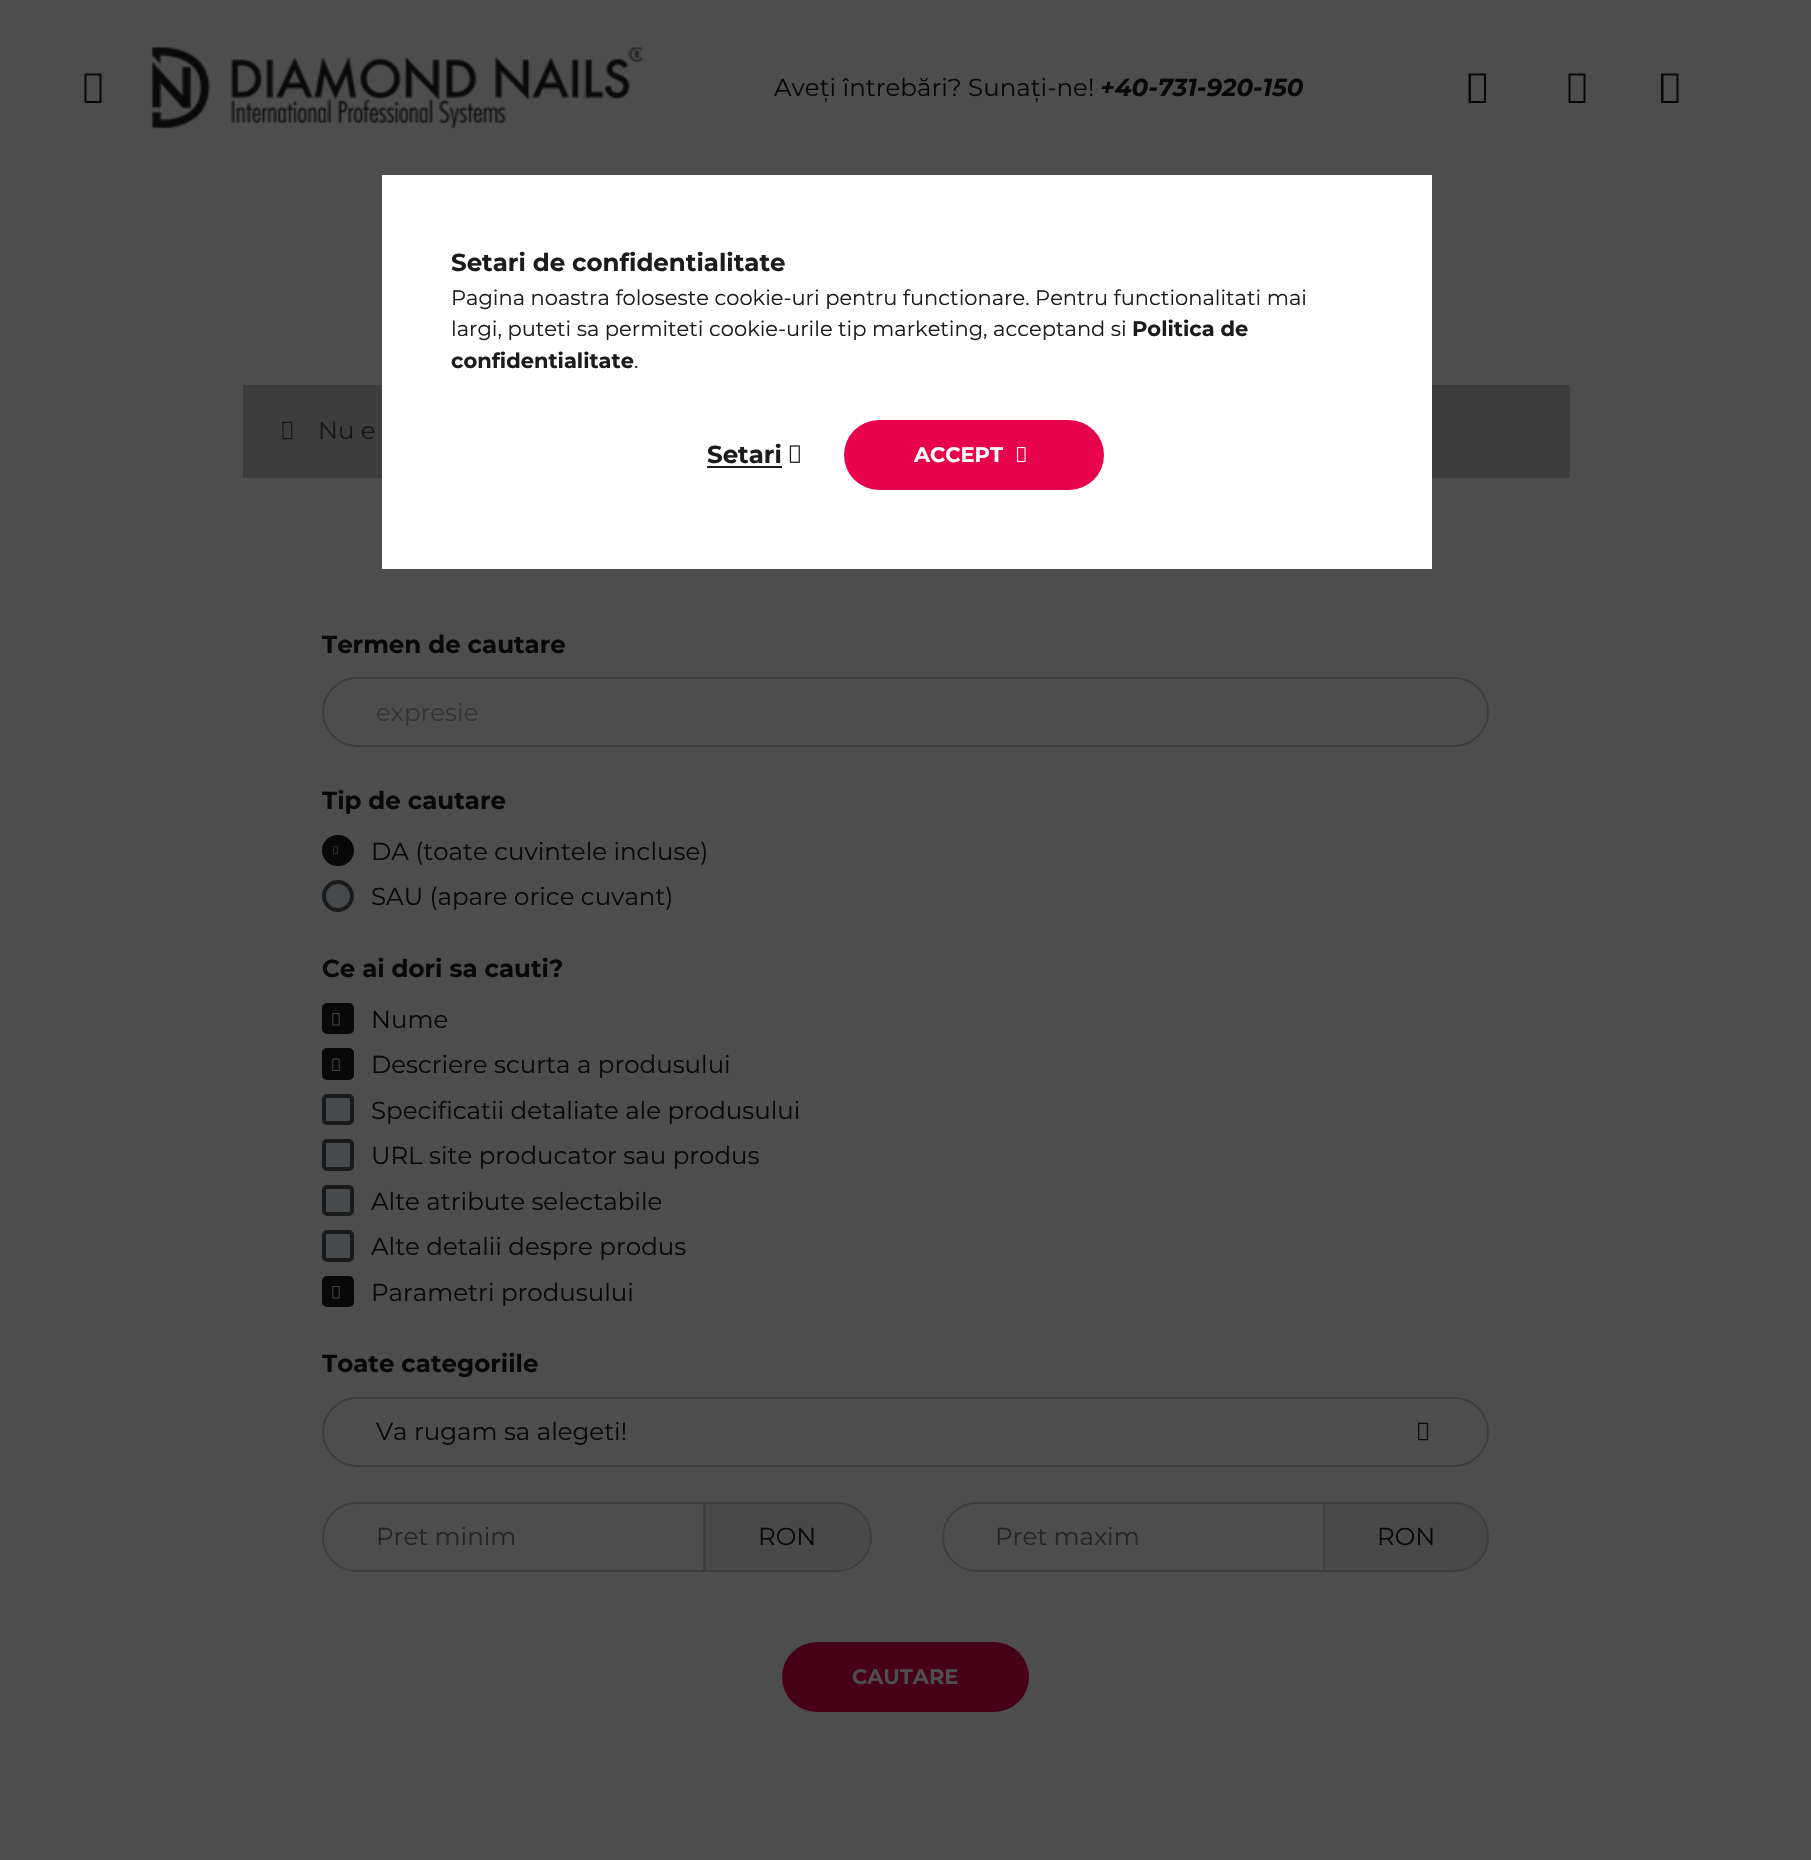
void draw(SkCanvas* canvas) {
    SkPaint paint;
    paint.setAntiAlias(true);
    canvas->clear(0xFF4D4D4D);
    paint.setColor(0xFF080808);
    canvas->drawPath(SkPathBuilder().moveTo(84.5f, 103).lineTo(84.5f, 73.5f).lineTo(101.5f, 73.5f).lineTo(101.5f, 103).close().moveTo(86.5f, 101).lineTo(99.5f, 101).lineTo(99.5f, 75.5f).lineTo(86.5f, 75.5f).close().detach(), paint);
    canvas->drawImageRect(SkImages::DeferredFromEncodedData(SkData::MakeFromFileName("img1.png")), SkRect::MakeXYWH(151, 46, 492, 83), SkSamplingOptions());
    SkFont font1(fontMgr->matchFamilyStyle("Montserrat", SkFontStyle::Normal()), 24.5f);
    font1.setSubpixel(true);
    canvas->drawString("Aveți întrebări? Sunați-ne!", 774, 96, font1, paint);
    SkFont font2(fontMgr->matchFamilyStyle("Montserrat", SkFontStyle::BoldItalic()), 24.5f);
    font2.setSubpixel(true);
    canvas->drawString("+40-731-920-150", 1100, 96, font2, paint);
    canvas->drawPath(SkPathBuilder().moveTo(1468.5f, 103).lineTo(1468.5f, 73.5f).lineTo(1486, 73.5f).lineTo(1486, 103).close().moveTo(1471, 101).lineTo(1484, 101).lineTo(1484, 75.5f).lineTo(1471, 75.5f).close().detach(), paint);
    canvas->drawPath(SkPathBuilder().moveTo(1568.5f, 103).lineTo(1568.5f, 73.5f).lineTo(1585.5f, 73.5f).lineTo(1585.5f, 103).close().moveTo(1570.5f, 101).lineTo(1583.5f, 101).lineTo(1583.5f, 75.5f).lineTo(1570.5f, 75.5f).close().detach(), paint);
    canvas->drawPath(SkPathBuilder().moveTo(1661, 103).lineTo(1661, 73.5f).lineTo(1678.5f, 73.5f).lineTo(1678.5f, 103).close().moveTo(1663.5f, 101).lineTo(1676.5f, 101).lineTo(1676.5f, 75.5f).lineTo(1663.5f, 75.5f).close().detach(), paint);
    paint.setColor(0xFF3D3D3D);
    canvas->drawRect(SkRect::MakeXYWH(243, 385, 1327, 93), paint);
    canvas->drawImageRect(SkImages::DeferredFromEncodedData(SkData::MakeFromFileName("img2.png")), SkRect::MakeXYWH(282, 421, 11, 19), SkSamplingOptions());
    paint.setColor(0xFF161616);
    canvas->drawString("Nu e", 318, 439, font1, paint);
    SkFont font3(fontMgr->matchFamilyStyle("Montserrat", SkFontStyle::Bold()), 24.5f);
    font3.setSubpixel(true);
    paint.setColor(0xFF080808);
    canvas->drawString("Termen de cautare", 322, 653, font3, paint);
    paint.setStyle(SkPaint::kStroke_Style);
    paint.setStrokeWidth(2);
    paint.setColor(0xFF3D3D3D);
    canvas->drawRoundRect(SkRect::MakeXYWH(323, 678, 1165, 68), 34, 34, paint);
    paint.setStyle(SkPaint::kFill_Style);
    paint.setColor(0xFF333333);
    canvas->drawString("expresie", 376, 721, font1, paint);
    paint.setColor(0xFF080808);
    canvas->drawString("Tip de cautare", 322, 809, font3, paint);
    canvas->drawRoundRect(SkRect::MakeXYWH(323, 836, 30, 29), 14.5f, 14.5f, paint);
    paint.setStyle(SkPaint::kStroke_Style);
    canvas->drawRoundRect(SkRect::MakeXYWH(323, 836, 30, 29), 14.5f, 14.5f, paint);
    canvas->drawImageRect(SkImages::DeferredFromEncodedData(SkData::MakeFromFileName("img3.png")), SkRect::MakeXYWH(333, 846, 5, 8), SkSamplingOptions());
    paint.setStyle(SkPaint::kFill_Style);
    canvas->drawString("DA (toate cuvintele incluse)", 371, 860, font1, paint);
    paint.setColor(0xFF464A4C);
    canvas->drawCircle(338, 896, 14, paint);
    paint.setStyle(SkPaint::kStroke_Style);
    paint.setStrokeWidth(4);
    paint.setColor(0xFF1A1A1A);
    canvas->drawCircle(338, 896, 14, paint);
    paint.setStyle(SkPaint::kFill_Style);
    paint.setColor(0xFF080808);
    canvas->drawString("SAU (apare orice cuvant)", 371, 905, font1, paint);
    canvas->drawString("Ce ai dori sa cauti?", 322, 977, font3, paint);
    canvas->drawRoundRect(SkRect::MakeXYWH(323, 1004, 30, 29), 4, 4, paint);
    paint.setStyle(SkPaint::kStroke_Style);
    paint.setStrokeWidth(2);
    canvas->drawRoundRect(SkRect::MakeXYWH(323, 1004, 30, 29), 4, 4, paint);
    canvas->drawImageRect(SkImages::DeferredFromEncodedData(SkData::MakeFromFileName("img4.png")), SkRect::MakeXYWH(332, 1013, 8, 13), SkSamplingOptions());
    paint.setStyle(SkPaint::kFill_Style);
    canvas->drawString("Nume", 371, 1028, font1, paint);
    canvas->drawRoundRect(SkRect::MakeXYWH(323, 1049, 30, 30), 4, 4, paint);
    paint.setStyle(SkPaint::kStroke_Style);
    canvas->drawRoundRect(SkRect::MakeXYWH(323, 1049, 30, 30), 4, 4, paint);
    canvas->drawImageRect(SkImages::DeferredFromEncodedData(SkData::MakeFromFileName("img5.png")), SkRect::MakeXYWH(332, 1058, 8, 13), SkSamplingOptions());
    paint.setStyle(SkPaint::kFill_Style);
    canvas->drawString("Descriere scurta a produsului", 371, 1073, font1, paint);
    paint.setColor(0xFF464A4C);
    canvas->drawRoundRect(SkRect::MakeXYWH(324, 1096, 28, 27), 3, 3, paint);
    paint.setStyle(SkPaint::kStroke_Style);
    paint.setStrokeWidth(4);
    paint.setColor(0xFF1A1A1A);
    canvas->drawRoundRect(SkRect::MakeXYWH(324, 1096, 28, 27), 3, 3, paint);
    paint.setStyle(SkPaint::kFill_Style);
    paint.setColor(0xFF080808);
    canvas->drawString("Specificatii detaliate ale produsului", 371, 1119, font1, paint);
    paint.setColor(0xFF464A4C);
    canvas->drawRoundRect(SkRect::MakeXYWH(324, 1141, 28, 28), 3, 3, paint);
    paint.setStyle(SkPaint::kStroke_Style);
    paint.setColor(0xFF1A1A1A);
    canvas->drawRoundRect(SkRect::MakeXYWH(324, 1141, 28, 28), 3, 3, paint);
    paint.setStyle(SkPaint::kFill_Style);
    paint.setColor(0xFF080808);
    canvas->drawString("URL site producator sau produs", 371, 1164, font1, paint);
    paint.setColor(0xFF464A4C);
    canvas->drawRoundRect(SkRect::MakeXYWH(324, 1187, 28, 27), 3, 3, paint);
    paint.setStyle(SkPaint::kStroke_Style);
    paint.setColor(0xFF1A1A1A);
    canvas->drawRoundRect(SkRect::MakeXYWH(324, 1187, 28, 27), 3, 3, paint);
    paint.setStyle(SkPaint::kFill_Style);
    paint.setColor(0xFF080808);
    canvas->drawString("Alte atribute selectabile", 371, 1210, font1, paint);
    paint.setColor(0xFF464A4C);
    canvas->drawRoundRect(SkRect::MakeXYWH(324, 1232, 28, 28), 3, 3, paint);
    paint.setStyle(SkPaint::kStroke_Style);
    paint.setColor(0xFF1A1A1A);
    canvas->drawRoundRect(SkRect::MakeXYWH(324, 1232, 28, 28), 3, 3, paint);
    paint.setStyle(SkPaint::kFill_Style);
    paint.setColor(0xFF080808);
    canvas->drawString("Alte detalii despre produs", 371, 1255, font1, paint);
    canvas->drawRoundRect(SkRect::MakeXYWH(323, 1277, 30, 29), 4, 4, paint);
    paint.setStyle(SkPaint::kStroke_Style);
    paint.setStrokeWidth(2);
    canvas->drawRoundRect(SkRect::MakeXYWH(323, 1277, 30, 29), 4, 4, paint);
    canvas->drawImageRect(SkImages::DeferredFromEncodedData(SkData::MakeFromFileName("img4.png")), SkRect::MakeXYWH(332, 1286, 8, 13), SkSamplingOptions());
    paint.setStyle(SkPaint::kFill_Style);
    canvas->drawString("Parametri produsului", 371, 1301, font1, paint);
    canvas->drawString("Toate categoriile", 322, 1372, font3, paint);
    paint.setStyle(SkPaint::kStroke_Style);
    paint.setColor(0xFF3D3D3D);
    canvas->drawRoundRect(SkRect::MakeXYWH(323, 1398, 1165, 68), 34, 34, paint);
    paint.setStyle(SkPaint::kFill_Style);
    paint.setColor(0xFF080808);
    canvas->drawString("Va rugam sa alegeti!", 376, 1440, font1, paint);
    canvas->drawImageRect(SkImages::DeferredFromEncodedData(SkData::MakeFromFileName("img6.png")), SkRect::MakeXYWH(1418, 1422, 11, 19), SkSamplingOptions());
    paint.setColor(0xFF484848);
    canvas->drawPath(SkPathBuilder().moveTo(705, 1503).lineTo(837, 1503).cubicTo(856, 1503, 871, 1518, 871, 1537).cubicTo(871, 1556, 856, 1571, 837, 1571).lineTo(705, 1571).close().detach(), paint);
    paint.setStyle(SkPaint::kStroke_Style);
    paint.setColor(0xFF3D3D3D);
    canvas->drawPath(SkPathBuilder().moveTo(705, 1503).lineTo(837, 1503).cubicTo(856, 1503, 871, 1518, 871, 1537).cubicTo(871, 1556, 856, 1571, 837, 1571).lineTo(705, 1571).close().detach(), paint);
    canvas->drawPath(SkPathBuilder().moveTo(357, 1503).lineTo(704, 1503).lineTo(704, 1571).lineTo(357, 1571).cubicTo(338, 1571, 323, 1556, 323, 1537).cubicTo(323, 1518, 338, 1503, 357, 1503).close().detach(), paint);
    paint.setStyle(SkPaint::kFill_Style);
    paint.setColor(0xFF242424);
    canvas->drawString("Pret minim", 376, 1545, font1, paint);
    paint.setColor(0xFF080808);
    canvas->drawString("RON", 758, 1545, font1, paint);
    paint.setColor(0xFF484848);
    canvas->drawPath(SkPathBuilder().moveTo(1324, 1503).lineTo(1454, 1503).cubicTo(1473, 1503, 1488, 1518, 1488, 1537).cubicTo(1488, 1556, 1473, 1571, 1454, 1571).lineTo(1324, 1571).close().detach(), paint);
    paint.setStyle(SkPaint::kStroke_Style);
    paint.setColor(0xFF3D3D3D);
    canvas->drawPath(SkPathBuilder().moveTo(1324, 1503).lineTo(1454, 1503).cubicTo(1473, 1503, 1488, 1518, 1488, 1537).cubicTo(1488, 1556, 1473, 1571, 1454, 1571).lineTo(1324, 1571).close().detach(), paint);
    canvas->drawPath(SkPathBuilder().moveTo(977, 1503).lineTo(1324, 1503).lineTo(1324, 1571).lineTo(977, 1571).cubicTo(958, 1571, 943, 1556, 943, 1537).cubicTo(943, 1518, 958, 1503, 977, 1503).close().detach(), paint);
    paint.setStyle(SkPaint::kFill_Style);
    paint.setColor(0xFF242424);
    canvas->drawString("Pret maxim", 995, 1545, font1, paint);
    paint.setColor(0xFF080808);
    canvas->drawString("RON", 1377, 1545, font1, paint);
    paint.setColor(0xFF460117);
    canvas->drawRoundRect(SkRect::MakeXYWH(782, 1642, 247, 70), 35, 35, paint);
    SkFont font4(fontMgr->matchFamilyStyle("Montserrat", SkFontStyle::Bold()), 21);
    font4.setSubpixel(true);
    paint.setColor(0xFF4D4D4D);
    canvas->drawString("CAUTARE", 852, 1684, font4, paint);
    paint.setColor(0xFFFFFFFF);
    canvas->drawRect(SkRect::MakeXYWH(382, 175, 1050, 394), paint);
    paint.setColor(0xFF1C1C1C);
    canvas->drawString("Setari de confidentialitate", 451, 271, font3, paint);
    SkFont font5(fontMgr->matchFamilyStyle("Montserrat", SkFontStyle::Normal()), 21);
    font5.setSubpixel(true);
    canvas->drawString("Pagina noastra foloseste cookie-uri pentru functionare. Pentru functionalitati mai", 451, 305, font5, paint);
    canvas->drawString("largi, puteti sa permiteti cookie-urile tip marketing, acceptand si", 451, 336, font5, paint);
    canvas->drawString("Politica de", 1132, 336, font4, paint);
    canvas->drawString("confidentialitate", 451, 368, font4, paint);
    canvas->drawString(".", 634, 368, font5, paint);
    canvas->drawString("Setari", 707, 463, font3, paint);
    canvas->drawRect(SkRect::MakeXYWH(707, 466, 75, 2), paint);
    canvas->drawImageRect(SkImages::DeferredFromEncodedData(SkData::MakeFromFileName("img7.png")), SkRect::MakeXYWH(789, 445, 11, 18), SkSamplingOptions());
    paint.setColor(0xFFE8044C);
    canvas->drawRoundRect(SkRect::MakeXYWH(844, 420, 260, 70), 35, 35, paint);
    paint.setColor(0xFFFFFFFF);
    canvas->drawString("ACCEPT", 914, 462, font4, paint);
    canvas->drawImageRect(SkImages::DeferredFromEncodedData(SkData::MakeFromFileName("img8.png")), SkRect::MakeXYWH(1016, 447, 10, 15), SkSamplingOptions());
}
